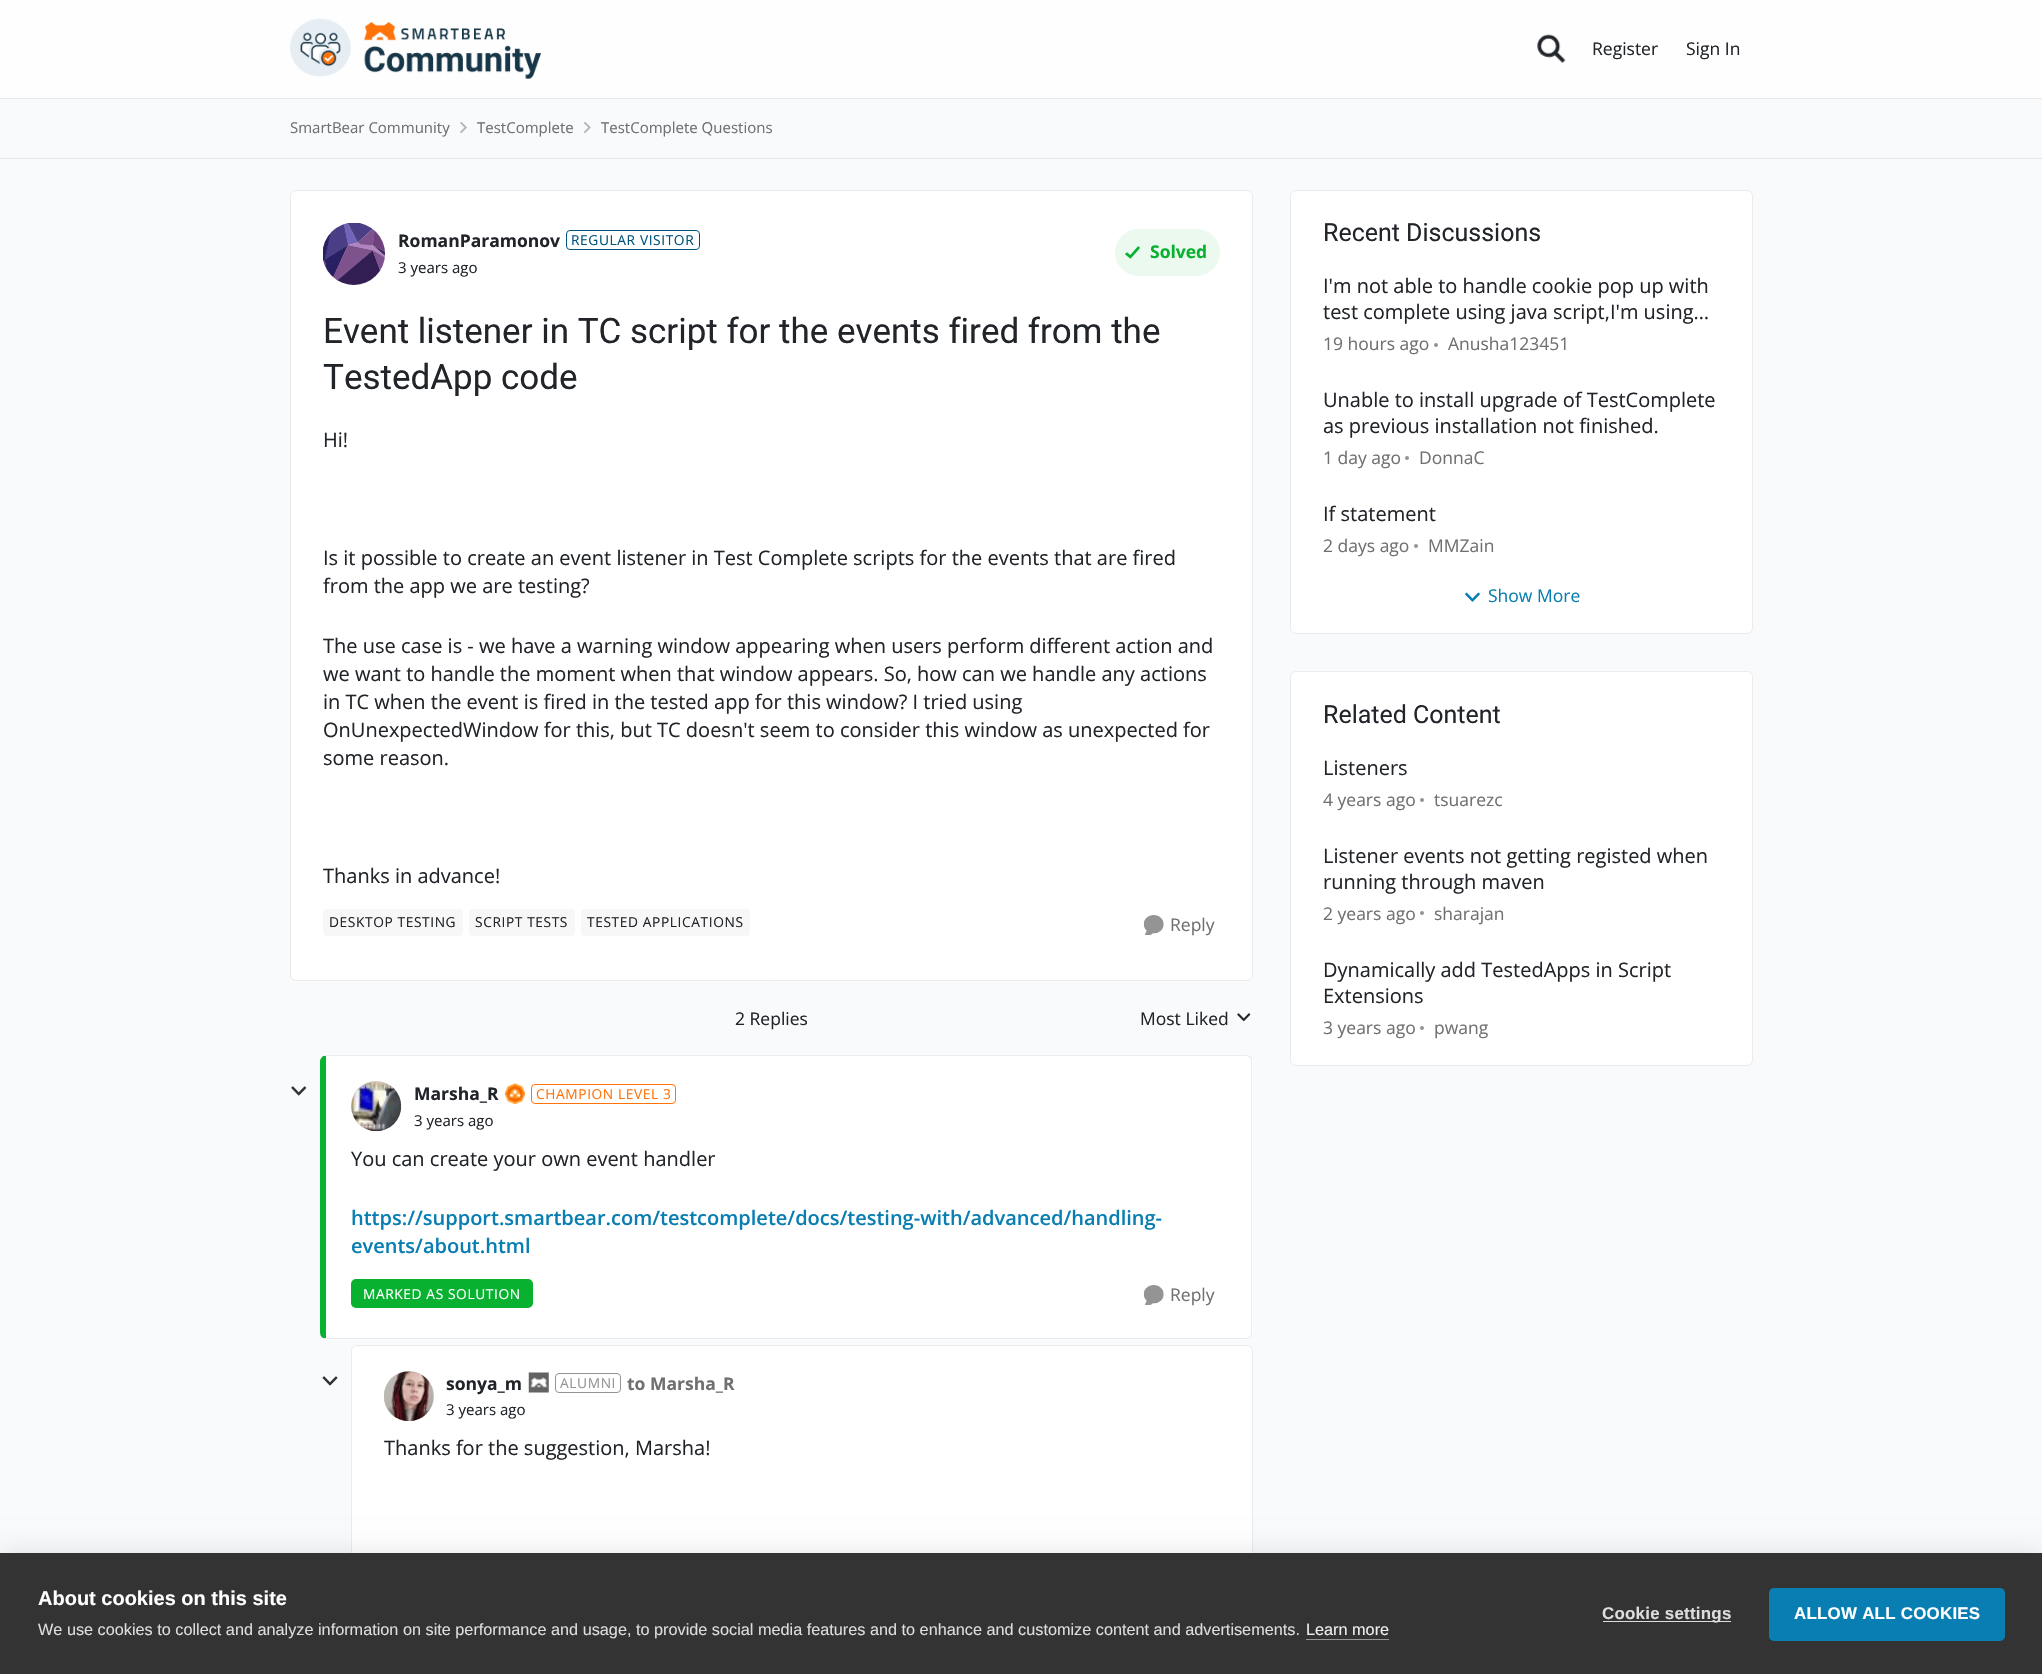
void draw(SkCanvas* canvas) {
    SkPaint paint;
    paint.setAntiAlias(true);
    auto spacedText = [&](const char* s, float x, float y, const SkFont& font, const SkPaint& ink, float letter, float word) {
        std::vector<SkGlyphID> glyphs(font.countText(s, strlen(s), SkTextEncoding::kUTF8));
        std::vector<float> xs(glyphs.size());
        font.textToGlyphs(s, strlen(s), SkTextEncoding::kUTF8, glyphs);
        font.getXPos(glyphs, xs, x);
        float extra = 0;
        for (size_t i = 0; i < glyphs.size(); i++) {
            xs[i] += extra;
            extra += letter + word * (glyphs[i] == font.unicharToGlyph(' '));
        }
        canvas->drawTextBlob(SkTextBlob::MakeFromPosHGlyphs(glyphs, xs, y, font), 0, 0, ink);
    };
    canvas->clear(0xFFF8FAFB);
    paint.setColor(0xCCFFFFFF);
    canvas->drawRect(SkRect::MakeXYWH(0, 0, 2042, 98), paint);
    paint.setColor(0xFFE9E9E9);
    canvas->drawRect(SkRect::MakeXYWH(0, 98, 2042, 1), paint);
    canvas->drawImageRect(SkImages::DeferredFromEncodedData(SkData::MakeFromFileName("img1.png")), SkRect::MakeXYWH(290, 18, 252, 61), SkSamplingOptions());
    canvas->drawImageRect(SkImages::DeferredFromEncodedData(SkData::MakeFromFileName("img2.png")), SkRect::MakeXYWH(1537, 34, 29, 29), SkSamplingOptions());
    SkFont font1(fontMgr->matchFamilyStyle("Open Sans", SkFontStyle::Normal()), 17.5f);
    font1.setSubpixel(true);
    paint.setColor(0xFF212429);
    canvas->drawString("Register", 1592, 55, font1, paint);
    canvas->drawString("Sign In", 1686, 55, font1, paint);
    paint.setColor(0xFFE4E6E7);
    canvas->drawRect(SkRect::MakeXYWH(0, 158, 2042, 1), paint);
    SkFont font2(fontMgr->matchFamilyStyle("Open Sans", SkFontStyle::Normal()), 15);
    font2.setSubpixel(true);
    paint.setColor(0xFF707070);
    canvas->drawString("SmartBear Community", 290, 133, font2, paint);
    canvas->drawImageRect(SkImages::DeferredFromEncodedData(SkData::MakeFromFileName("img3.png")), SkRect::MakeXYWH(460, 122, 7, 11), SkSamplingOptions());
    canvas->drawString("TestComplete", 477, 133, font2, paint);
    canvas->drawImageRect(SkImages::DeferredFromEncodedData(SkData::MakeFromFileName("img4.png")), SkRect::MakeXYWH(584, 122, 7, 11), SkSamplingOptions());
    canvas->drawString("TestComplete Questions", 601, 133, font2, paint);
    paint.setColor(0xFFFFFFFF);
    canvas->drawRoundRect(SkRect::MakeXYWH(290.5f, 190.5f, 962, 790), 5.5f, 5.5f, paint);
    paint.setStyle(SkPaint::kStroke_Style);
    paint.setStrokeWidth(1);
    paint.setColor(0xFFEBEBEB);
    canvas->drawRoundRect(SkRect::MakeXYWH(290.5f, 190.5f, 962, 790), 5.5f, 5.5f, paint);
    paint.setStyle(SkPaint::kFill_Style);
    paint.setColor(0xFFD9D9D9);
    canvas->drawCircle(354, 254, 31, paint);
    canvas->drawImageRect(SkImages::DeferredFromEncodedData(SkData::MakeFromFileName("img5.png")), SkRect::MakeXYWH(323, 223, 62, 62), SkSamplingOptions());
    SkFont font3(fontMgr->matchFamilyStyle("Open Sans", SkFontStyle::Bold()), 17.5f);
    font3.setSubpixel(true);
    paint.setColor(0xFF212429);
    canvas->drawString("RomanParamonov", 398, 247, font3, paint);
    paint.setStyle(SkPaint::kStroke_Style);
    paint.setColor(0xFF00537C);
    canvas->drawRoundRect(SkRect::MakeXYWH(566.5f, 230.5f, 133, 19), 3.5f, 3.5f, paint);
    SkFont font4(fontMgr->matchFamilyStyle("Open Sans", SkFontStyle::Normal()), 13.75f);
    font4.setSubpixel(true);
    paint.setStyle(SkPaint::kFill_Style);
    spacedText("REGULAR VISITOR", 571, 245, font4, paint, 0.6f, 0);
    paint.setColor(0xFF212429);
    canvas->drawString("3 years ago", 398, 273, font2, paint);
    paint.setColor(0xFFEBF9EE);
    canvas->drawRoundRect(SkRect::MakeXYWH(1115, 229, 105, 47), 23.5f, 23.5f, paint);
    canvas->drawImageRect(SkImages::DeferredFromEncodedData(SkData::MakeFromFileName("img6.png")), SkRect::MakeXYWH(1125, 246, 15, 13), SkSamplingOptions());
    paint.setColor(0xFF08B130);
    canvas->drawString("Solved", 1150, 258, font3, paint);
    SkFont font5(fontMgr->matchFamilyStyle("Roboto", SkFontStyle::Normal()), 35);
    font5.setSubpixel(true);
    paint.setColor(0xFF212429);
    canvas->drawString("Event listener in TC script for the events fired from the", 323, 343, font5, paint);
    canvas->drawString("TestedApp code", 323, 389, font5, paint);
    SkFont font6(fontMgr->matchFamilyStyle("Open Sans", SkFontStyle::Normal()), 20);
    font6.setSubpixel(true);
    canvas->drawString("Hi!", 323, 447, font6, paint);
    canvas->drawString("Is it possible to create an event listener in Test Complete scripts for the events that are fired", 323, 565, font6, paint);
    canvas->drawString("from the app we are testing?", 323, 593, font6, paint);
    canvas->drawString("The use case is - we have a warning window appearing when users perform different action and", 323, 653, font6, paint);
    canvas->drawString("we want to handle the moment when that window appears. So, how can we handle any actions", 323, 681, font6, paint);
    canvas->drawString("in TC when the event is fired in the tested app for this window? I tried using", 323, 709, font6, paint);
    canvas->drawString("OnUnexpectedWindow for this, but TC doesn't seem to consider this window as unexpected for", 323, 737, font6, paint);
    canvas->drawString("some reason.", 323, 765, font6, paint);
    canvas->drawString("Thanks in advance!", 323, 883, font6, paint);
    paint.setColor(0xFFF7F7F7);
    canvas->drawRoundRect(SkRect::MakeXYWH(323, 909, 140, 27), 4, 4, paint);
    paint.setColor(0xFF212429);
    spacedText("DESKTOP TESTING", 329, 927, font4, paint, 0.6f, 0);
    paint.setColor(0xFFF7F7F7);
    canvas->drawRoundRect(SkRect::MakeXYWH(469, 909, 106, 27), 4, 4, paint);
    paint.setColor(0xFF212429);
    spacedText("SCRIPT TESTS", 475, 927, font4, paint, 0.6f, 0);
    paint.setColor(0xFFF7F7F7);
    canvas->drawRoundRect(SkRect::MakeXYWH(581, 909, 169, 27), 4, 4, paint);
    paint.setColor(0xFF212429);
    spacedText("TESTED APPLICATIONS", 587, 927, font4, paint, 0.6f, 0);
    canvas->drawImageRect(SkImages::DeferredFromEncodedData(SkData::MakeFromFileName("img7.png")), SkRect::MakeXYWH(1143, 915, 21, 20), SkSamplingOptions());
    paint.setColor(0xFF707070);
    canvas->drawString("Reply", 1170, 931, font1, paint);
    paint.setColor(0xFF212429);
    canvas->drawString("2 Replies", 735, 1025, font1, paint);
    canvas->drawString("Most Liked", 1140, 1025, font1, paint);
    canvas->drawImageRect(SkImages::DeferredFromEncodedData(SkData::MakeFromFileName("img8.png")), SkRect::MakeXYWH(1237, 1013, 14, 9), SkSamplingOptions());
    canvas->drawImageRect(SkImages::DeferredFromEncodedData(SkData::MakeFromFileName("img9.png")), SkRect::MakeXYWH(291, 1086, 16, 10), SkSamplingOptions());
    paint.setColor(0xFFFFFFFF);
    canvas->drawRoundRect(SkRect::MakeXYWH(320, 1055, 933, 284), 6, 6, paint);
    paint.setColor(0xFFEBEBEB);
    canvas->drawPath(SkPathBuilder().moveTo(326, 1055).lineTo(323, 1056).lineTo(326, 1056).lineTo(1246, 1056).cubicTo(1248, 1056, 1249, 1057, 1250, 1058).lineTo(1251, 1057).cubicTo(1250, 1056, 1248, 1055, 1246, 1055).close().detach(), paint);
    paint.setColor(0x14000000);
    canvas->drawPath(SkPathBuilder().moveTo(1251, 1057).cubicTo(1252, 1058, 1252, 1060, 1252, 1061).lineTo(1252, 1332).cubicTo(1252, 1334, 1252, 1336, 1251, 1337).lineTo(1250, 1336).cubicTo(1251, 1335, 1251, 1333, 1251, 1332).lineTo(1251, 1061).cubicTo(1251, 1060, 1251, 1058, 1250, 1058).close().detach(), paint);
    canvas->drawPath(SkPathBuilder().moveTo(324, 1339).lineTo(323, 1338).lineTo(326, 1338).lineTo(1246, 1338).cubicTo(1248, 1338, 1249, 1337, 1250, 1336).lineTo(1251, 1337).lineTo(1248, 1339).close().detach(), paint);
    paint.setColor(0xFF08B130);
    canvas->drawPath(SkPathBuilder().moveTo(320, 1061).lineTo(320, 1332).cubicTo(320, 1335, 321, 1337, 323, 1338).lineTo(326, 1338).lineTo(326, 1056).lineTo(323, 1056).cubicTo(322, 1057, 320, 1059, 320, 1061).close().detach(), paint);
    paint.setColor(0xFFD9D9D9);
    canvas->drawCircle(376, 1106, 25, paint);
    canvas->drawImageRect(SkImages::DeferredFromEncodedData(SkData::MakeFromFileName("img10.png")), SkRect::MakeXYWH(351, 1081, 51, 51), SkSamplingOptions());
    paint.setColor(0xFF212429);
    canvas->drawString("Marsha_R", 414, 1100, font3, paint);
    canvas->drawImageRect(SkImages::DeferredFromEncodedData(SkData::MakeFromFileName("img11.png")), SkRect::MakeXYWH(505, 1083, 20, 21), SkSamplingOptions());
    paint.setStyle(SkPaint::kStroke_Style);
    paint.setColor(0xFFFF730B);
    canvas->drawRoundRect(SkRect::MakeXYWH(531.5f, 1084.5f, 144, 19), 3.5f, 3.5f, paint);
    paint.setStyle(SkPaint::kFill_Style);
    spacedText("CHAMPION LEVEL 3", 536, 1099, font4, paint, 0.6f, 0);
    paint.setColor(0xFF212429);
    canvas->drawString("3 years ago", 414, 1126, font2, paint);
    canvas->drawString("You can create your own event handler", 351, 1166, font6, paint);
    SkFont font7(fontMgr->matchFamilyStyle("Open Sans", SkFontStyle(600, SkFontStyle::kNormal_Width, SkFontStyle::kUpright_Slant)), 20);
    font7.setSubpixel(true);
    paint.setColor(0xFF097EB2);
    canvas->drawString("https://support.smartbear.com/testcomplete/docs/testing-with/advanced/handling-", 351, 1225, font7, paint);
    canvas->drawString("events/about.html", 351, 1253, font7, paint);
    paint.setColor(0xFF08B130);
    canvas->drawRoundRect(SkRect::MakeXYWH(351, 1279, 182, 29), 5, 5, paint);
    paint.setColor(0xFFFFFFFF);
    spacedText("MARKED AS SOLUTION", 363, 1299, font4, paint, 0.6f, 0);
    canvas->drawImageRect(SkImages::DeferredFromEncodedData(SkData::MakeFromFileName("img7.png")), SkRect::MakeXYWH(1143, 1285, 21, 20), SkSamplingOptions());
    paint.setColor(0xFF707070);
    canvas->drawString("Reply", 1170, 1301, font1, paint);
    canvas->drawImageRect(SkImages::DeferredFromEncodedData(SkData::MakeFromFileName("img12.png")), SkRect::MakeXYWH(322, 1376, 16, 10), SkSamplingOptions());
    paint.setColor(0xFFFFFFFF);
    canvas->drawRoundRect(SkRect::MakeXYWH(351.5f, 1345.5f, 901, 313), 5.5f, 5.5f, paint);
    paint.setStyle(SkPaint::kStroke_Style);
    paint.setColor(0xFFEBEBEB);
    canvas->drawRoundRect(SkRect::MakeXYWH(351.5f, 1345.5f, 901, 313), 5.5f, 5.5f, paint);
    paint.setStyle(SkPaint::kFill_Style);
    paint.setColor(0xFFD9D9D9);
    canvas->drawCircle(409, 1396, 25, paint);
    canvas->drawImageRect(SkImages::DeferredFromEncodedData(SkData::MakeFromFileName("img13.png")), SkRect::MakeXYWH(383, 1371, 51, 51), SkSamplingOptions());
    paint.setColor(0xFF212429);
    canvas->drawString("sonya_m", 446, 1390, font3, paint);
    canvas->drawImageRect(SkImages::DeferredFromEncodedData(SkData::MakeFromFileName("img14.png")), SkRect::MakeXYWH(528, 1372, 21, 21), SkSamplingOptions());
    paint.setStyle(SkPaint::kStroke_Style);
    paint.setColor(0xFF949494);
    canvas->drawRoundRect(SkRect::MakeXYWH(555.5f, 1373.5f, 65, 19), 3.5f, 3.5f, paint);
    paint.setStyle(SkPaint::kFill_Style);
    spacedText("ALUMNI", 560, 1388, font4, paint, 0.6f, 0);
    paint.setColor(0xFF707070);
    canvas->drawString("to Marsha_R", 627, 1390, font3, paint);
    paint.setColor(0xFF212429);
    canvas->drawString("3 years ago", 446, 1415, font2, paint);
    canvas->drawString("Thanks for the suggestion, Marsha!", 384, 1455, font6, paint);
    paint.setColor(0xFFFFFFFF);
    canvas->drawRoundRect(SkRect::MakeXYWH(1290.5f, 190.5f, 462, 443), 5.5f, 5.5f, paint);
    paint.setStyle(SkPaint::kStroke_Style);
    paint.setColor(0xFFEBEBEB);
    canvas->drawRoundRect(SkRect::MakeXYWH(1290.5f, 190.5f, 462, 443), 5.5f, 5.5f, paint);
    SkFont font8(fontMgr->matchFamilyStyle("Roboto", SkFontStyle::Normal()), 25);
    font8.setSubpixel(true);
    paint.setStyle(SkPaint::kFill_Style);
    paint.setColor(0xFF212429);
    canvas->drawString("Recent Discussions", 1323, 241, font8, paint);
    canvas->drawString("I'm not able to handle cookie pop up with", 1323, 293, font6, paint);
    canvas->drawString("test complete using java script,I'm using…", 1323, 319, font6, paint);
    paint.setColor(0xFF707070);
    canvas->drawString("19 hours ago", 1323, 350, font1, paint);
    paint.setColor(0xFF949494);
    canvas->drawCircle(1436, 345, 2, paint);
    paint.setColor(0xFF707070);
    canvas->drawString("Anusha123451", 1448, 350, font1, paint);
    paint.setColor(0xFF212429);
    canvas->drawString("Unable to install upgrade of TestComplete", 1323, 407, font6, paint);
    canvas->drawString("as previous installation not finished.", 1323, 433, font6, paint);
    paint.setColor(0xFF707070);
    canvas->drawString("1 day ago", 1323, 464, font1, paint);
    paint.setColor(0xFF949494);
    canvas->drawCircle(1407, 458, 2, paint);
    paint.setColor(0xFF707070);
    canvas->drawString("DonnaC", 1419, 464, font1, paint);
    paint.setColor(0xFF212429);
    canvas->drawString("If statement", 1323, 521, font6, paint);
    paint.setColor(0xFF707070);
    canvas->drawString("2 days ago", 1323, 552, font1, paint);
    paint.setColor(0xFF949494);
    canvas->drawCircle(1416, 546, 2, paint);
    paint.setColor(0xFF707070);
    canvas->drawString("MMZain", 1428, 552, font1, paint);
    canvas->drawImageRect(SkImages::DeferredFromEncodedData(SkData::MakeFromFileName("img15.png")), SkRect::MakeXYWH(1465, 592, 15, 10), SkSamplingOptions());
    paint.setColor(0xFF097EB2);
    canvas->drawString("Show More", 1488, 602, font1, paint);
    paint.setColor(0xFFFFFFFF);
    canvas->drawRoundRect(SkRect::MakeXYWH(1290.5f, 671.5f, 462, 394), 5.5f, 5.5f, paint);
    paint.setStyle(SkPaint::kStroke_Style);
    paint.setColor(0xFFEBEBEB);
    canvas->drawRoundRect(SkRect::MakeXYWH(1290.5f, 671.5f, 462, 394), 5.5f, 5.5f, paint);
    paint.setStyle(SkPaint::kFill_Style);
    paint.setColor(0xFF212429);
    canvas->drawString("Related Content", 1323, 723, font8, paint);
    canvas->drawString("Listeners", 1323, 775, font6, paint);
    paint.setColor(0xFF707070);
    canvas->drawString("4 years ago", 1323, 806, font1, paint);
    paint.setColor(0xFF949494);
    canvas->drawCircle(1422, 800, 2, paint);
    paint.setColor(0xFF707070);
    canvas->drawString("tsuarezc", 1434, 806, font1, paint);
    paint.setColor(0xFF212429);
    canvas->drawString("Listener events not getting registed when", 1323, 863, font6, paint);
    canvas->drawString("running through maven", 1323, 889, font6, paint);
    paint.setColor(0xFF707070);
    canvas->drawString("2 years ago", 1323, 920, font1, paint);
    paint.setColor(0xFF949494);
    canvas->drawCircle(1422, 913, 2, paint);
    paint.setColor(0xFF707070);
    canvas->drawString("sharajan", 1434, 920, font1, paint);
    paint.setColor(0xFF212429);
    canvas->drawString("Dynamically add TestedApps in Script", 1323, 977, font6, paint);
    canvas->drawString("Extensions", 1323, 1003, font6, paint);
    paint.setColor(0xFF707070);
    canvas->drawString("3 years ago", 1323, 1034, font1, paint);
    paint.setColor(0xFF949494);
    canvas->drawCircle(1422, 1028, 2, paint);
    paint.setColor(0xFF707070);
    canvas->drawString("pwang", 1434, 1034, font1, paint);
    paint.setColor(0x1A000000);
    paint.setMaskFilter(SkMaskFilter::MakeBlur(kNormal_SkBlurStyle, 12.5f));
    canvas->drawRect(SkRect::MakeXYWH(0, 1553, 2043, 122), paint);
    paint.setMaskFilter(nullptr);
    paint.setColor(0xFF333333);
    canvas->drawRect(SkRect::MakeXYWH(0, 1553, 2042, 121), paint);
    SkFont font9(fontMgr->matchFamilyStyle("Liberation Sans", SkFontStyle::Bold()), 20);
    font9.setSubpixel(true);
    paint.setColor(0xFFFFFFFF);
    canvas->drawString("About cookies on this site", 38, 1605, font9, paint);
    SkFont font10(fontMgr->matchFamilyStyle("Liberation Sans", SkFontStyle::Normal()), 16.25f);
    font10.setSubpixel(true);
    paint.setColor(0xFFDDDDDD);
    canvas->drawString("We use cookies to collect and analyze information on site performance and usage, to provide social media features and to enhance and customize content and advertisements.", 38, 1635, font10, paint);
    paint.setColor(0xFFEEEEEE);
    canvas->drawString("Learn more", 1306, 1635, font10, paint);
    paint.setColor(0xFF999999);
    canvas->drawRect(SkRect::MakeXYWH(1306, 1639, 83, 1), paint);
    paint.setColor(0xFFDDDDDD);
    canvas->drawRect(SkRect::MakeXYWH(1603, 1621, 128, 1), paint);
    SkFont font11(fontMgr->matchFamilyStyle("Liberation Sans", SkFontStyle::Bold()), 16.9f);
    font11.setSubpixel(true);
    spacedText("Cookie settings", 1602, 1619, font11, paint, 0.25f, 0);
    paint.setColor(0xFF097EB2);
    canvas->drawRoundRect(SkRect::MakeXYWH(1769, 1588, 236, 53), 5, 5, paint);
    paint.setColor(0xFFFFFFFF);
    spacedText("ALLOW ALL COOKIES", 1794, 1619, font11, paint, 0.25f, 0);
}
